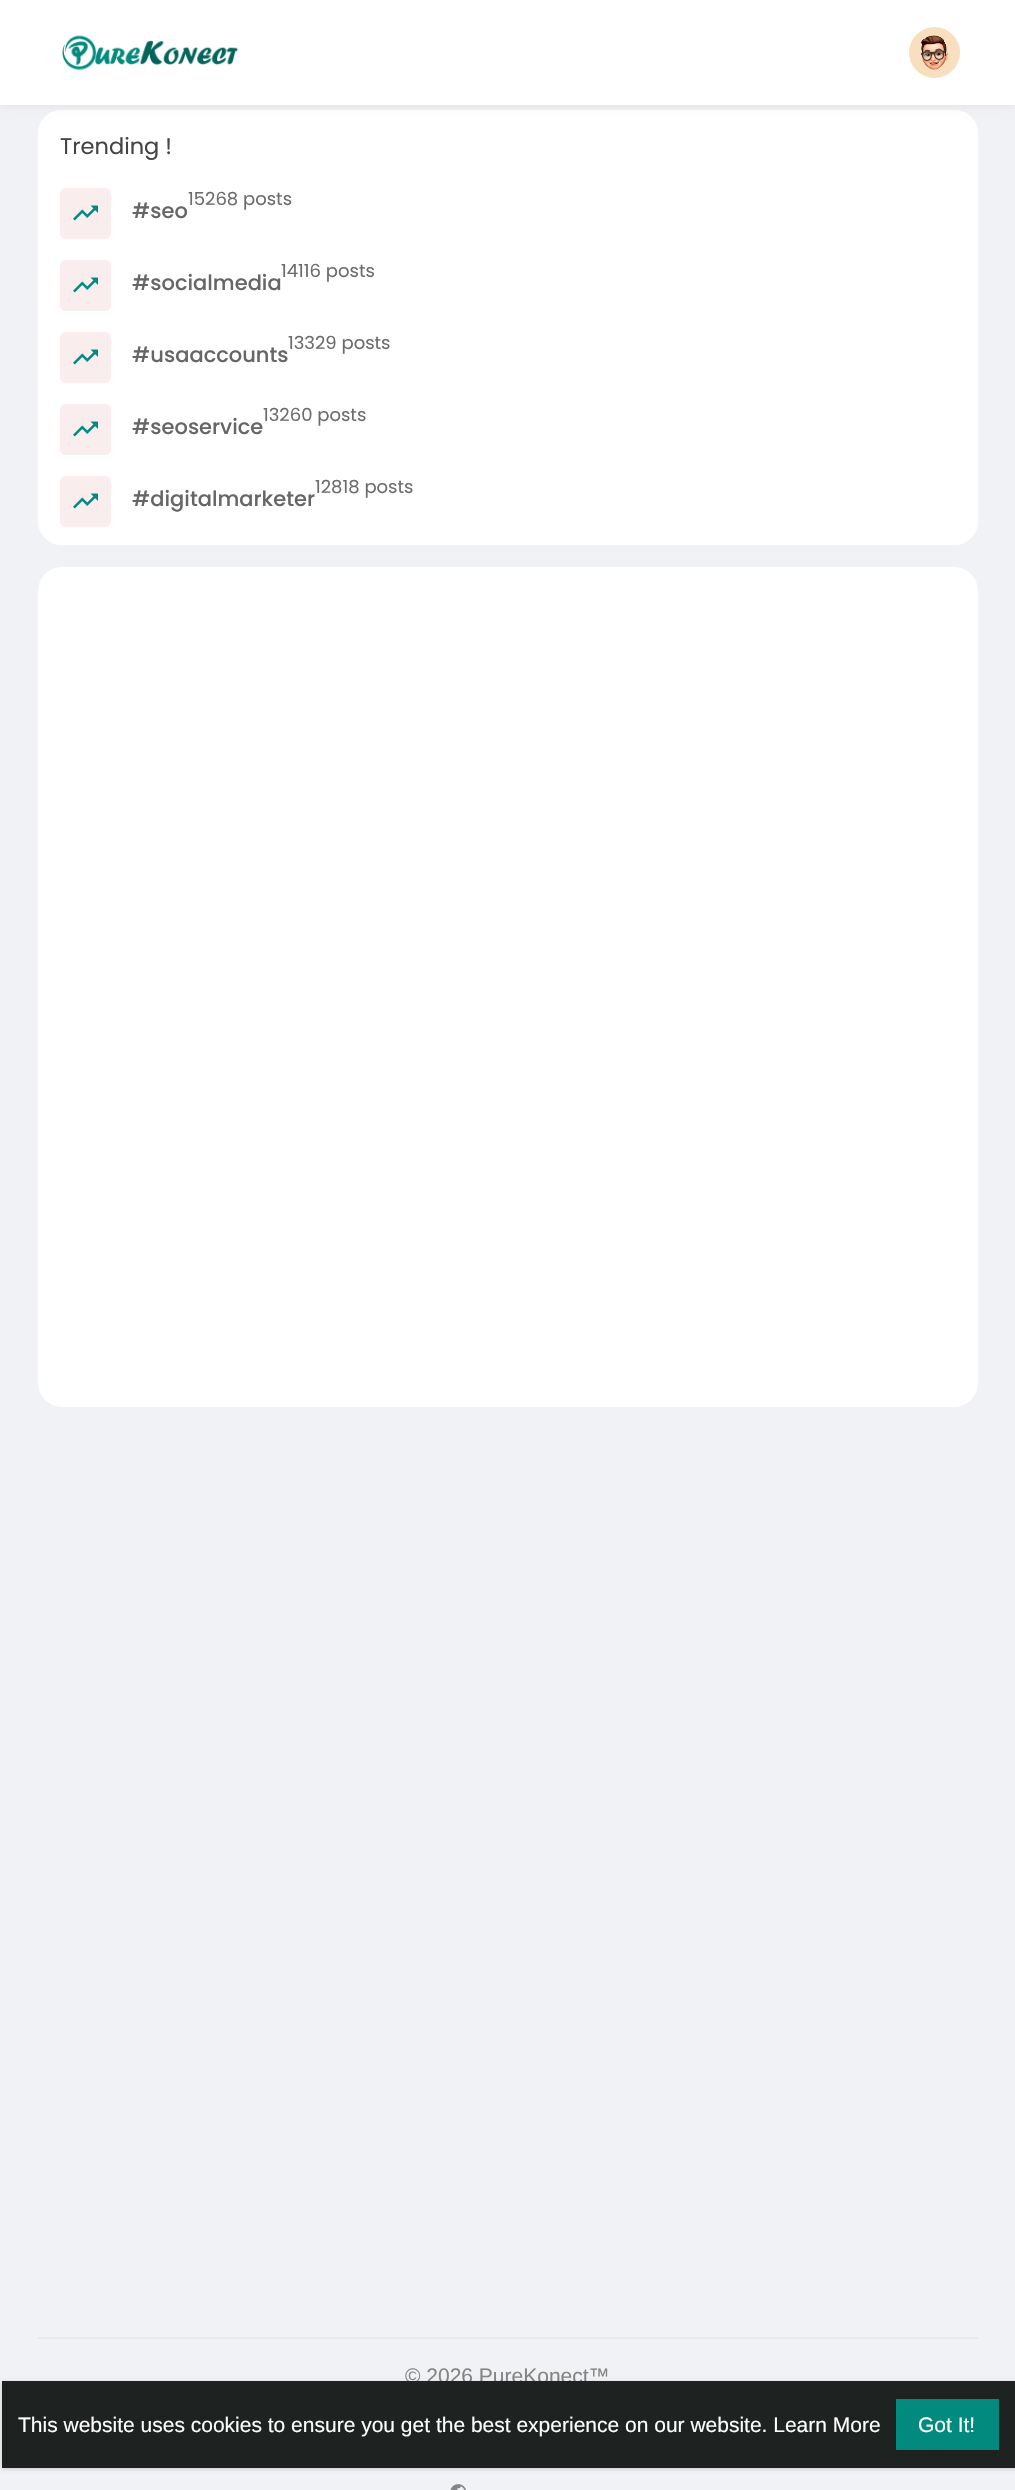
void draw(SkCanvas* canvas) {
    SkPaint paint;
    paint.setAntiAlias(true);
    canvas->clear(0xFFF0F2F5);
    paint.setColor(0xFFFFFFFF);
    canvas->drawRoundRect(SkRect::MakeXYWH(38, 110, 940, 435), 24, 24, paint);
    canvas->drawPath(SkPathBuilder().moveTo(62, 110).lineTo(954, 110).cubicTo(967.5f, 110, 978, 120.5f, 978, 134).lineTo(978, 185).lineTo(38, 185).lineTo(38, 134).cubicTo(38, 120.5f, 48.5f, 110, 62, 110).close().detach(), paint);
    paint.setColor(0x0D000000);
    paint.setMaskFilter(SkMaskFilter::MakeBlur(kNormal_SkBlurStyle, 4.5f));
    canvas->drawRect(SkRect::MakeXYWH(0, 2, 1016, 105), paint);
    paint.setMaskFilter(nullptr);
    paint.setColor(0xFFFFFFFF);
    canvas->drawRect(SkRect::MakeXYWH(0, 0, 1015, 105), paint);
    canvas->drawImageRect(SkImages::DeferredFromEncodedData(SkData::MakeFromFileName("img1.png")), SkRect::MakeXYWH(62, 35, 176, 36), SkSamplingOptions());
    canvas->drawImageRect(SkImages::DeferredFromEncodedData(SkData::MakeFromFileName("img2.png")), SkRect::MakeXYWH(909, 27, 51, 51), SkSamplingOptions());
    SkFont font1(fontMgr->matchFamilyStyle("Poppins", SkFontStyle::Normal()), 22.5f);
    font1.setSubpixel(true);
    paint.setColor(0xFF444444);
    canvas->drawString("Trending !", 60, 154, font1, paint);
    paint.setColor(0xFFF9EDEE);
    canvas->drawRoundRect(SkRect::MakeXYWH(60, 188, 51, 51), 6, 6, paint);
    SkFont font2(fontMgr->matchFamilyStyle("Poppins", SkFontStyle(500, SkFontStyle::kNormal_Width, SkFontStyle::kUpright_Slant)), 21);
    font2.setSubpixel(true);
    paint.setColor(0xFF666666);
    canvas->drawString("#seo", 132, 218, font2, paint);
    canvas->drawImageRect(SkImages::DeferredFromEncodedData(SkData::MakeFromFileName("img3.png")), SkRect::MakeXYWH(73, 205, 25, 16), SkSamplingOptions());
    SkFont font3(fontMgr->matchFamilyStyle("Poppins", SkFontStyle::Normal()), 18);
    font3.setSubpixel(true);
    paint.setColor(0xFF6C6C6C);
    canvas->drawString("15268 posts", 188, 205, font3, paint);
    paint.setColor(0xFFF9EDEE);
    canvas->drawRoundRect(SkRect::MakeXYWH(60, 260, 51, 51), 6, 6, paint);
    paint.setColor(0xFF666666);
    canvas->drawString("#socialmedia", 132, 290, font2, paint);
    canvas->drawImageRect(SkImages::DeferredFromEncodedData(SkData::MakeFromFileName("img3.png")), SkRect::MakeXYWH(73, 277, 25, 16), SkSamplingOptions());
    paint.setColor(0xFF6C6C6C);
    canvas->drawString("14116 posts", 281, 277, font3, paint);
    paint.setColor(0xFFF9EDEE);
    canvas->drawRoundRect(SkRect::MakeXYWH(60, 332, 51, 51), 6, 6, paint);
    paint.setColor(0xFF666666);
    canvas->drawString("#usaaccounts", 132, 362, font2, paint);
    canvas->drawImageRect(SkImages::DeferredFromEncodedData(SkData::MakeFromFileName("img3.png")), SkRect::MakeXYWH(73, 349, 25, 16), SkSamplingOptions());
    paint.setColor(0xFF6C6C6C);
    canvas->drawString("13329 posts", 288, 349, font3, paint);
    paint.setColor(0xFFF9EDEE);
    canvas->drawRoundRect(SkRect::MakeXYWH(60, 404, 51, 51), 6, 6, paint);
    paint.setColor(0xFF666666);
    canvas->drawString("#seoservice", 132, 434, font2, paint);
    canvas->drawImageRect(SkImages::DeferredFromEncodedData(SkData::MakeFromFileName("img3.png")), SkRect::MakeXYWH(73, 421, 25, 16), SkSamplingOptions());
    paint.setColor(0xFF6C6C6C);
    canvas->drawString("13260 posts", 263, 421, font3, paint);
    paint.setColor(0xFFFFFFFF);
    canvas->drawPath(SkPathBuilder().moveTo(38, 473).lineTo(978, 473).lineTo(978, 521).cubicTo(978, 534.5f, 967.5f, 545, 954, 545).lineTo(62, 545).cubicTo(48.5f, 545, 38, 534.5f, 38, 521).close().detach(), paint);
    paint.setColor(0xFFF9EDEE);
    canvas->drawRoundRect(SkRect::MakeXYWH(60, 476, 51, 51), 6, 6, paint);
    paint.setColor(0xFF666666);
    canvas->drawString("#digitalmarketer", 132, 506, font2, paint);
    canvas->drawImageRect(SkImages::DeferredFromEncodedData(SkData::MakeFromFileName("img3.png")), SkRect::MakeXYWH(73, 493, 25, 16), SkSamplingOptions());
    paint.setColor(0xFF6C6C6C);
    canvas->drawString("12818 posts", 315, 493, font3, paint);
    paint.setColor(0xFFFFFFFF);
    canvas->drawRoundRect(SkRect::MakeXYWH(38, 567, 940, 840), 24, 24, paint);
    paint.setColor(0xFFE9E9E9);
    canvas->drawRect(SkRect::MakeXYWH(38, 2337, 940, 2), paint);
    SkFont font4(fontMgr->matchFamilyStyle("Liberation Sans", SkFontStyle::Normal()), 21);
    font4.setSubpixel(true);
    paint.setColor(0xFF858585);
    canvas->drawString("© 2026 PureKonect™", 405, 2383, font4, paint);
    canvas->drawImageRect(SkImages::DeferredFromEncodedData(SkData::MakeFromFileName("img4.png")), SkRect::MakeXYWH(450, 2484, 16, 6), SkSamplingOptions());
    paint.setColor(0x0F000000);
    paint.setMaskFilter(SkMaskFilter::MakeBlur(kNormal_SkBlurStyle, 1.5f));
    canvas->drawRect(SkRect::MakeXYWH(2, 2382, 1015, 87), paint);
    paint.setMaskFilter(nullptr);
    paint.setColor(0x1A000000);
    paint.setMaskFilter(SkMaskFilter::MakeBlur(kNormal_SkBlurStyle, 2));
    canvas->drawRect(SkRect::MakeXYWH(2, 2382, 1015, 87), paint);
    paint.setMaskFilter(nullptr);
    paint.setColor(0xFF1E2321);
    canvas->drawRect(SkRect::MakeXYWH(2, 2381, 1013, 87), paint);
    paint.setColor(0xFFFFFFFF);
    canvas->drawString("This website uses cookies to ensure you get the best experience on our website. Learn More", 18, 2432, font4, paint);
    paint.setColor(0xFF028A7E);
    canvas->drawRect(SkRect::MakeXYWH(896, 2399, 103, 51), paint);
    paint.setColor(0xFFFFFFFF);
    canvas->drawString("Got It!", 918, 2432, font4, paint);
}
